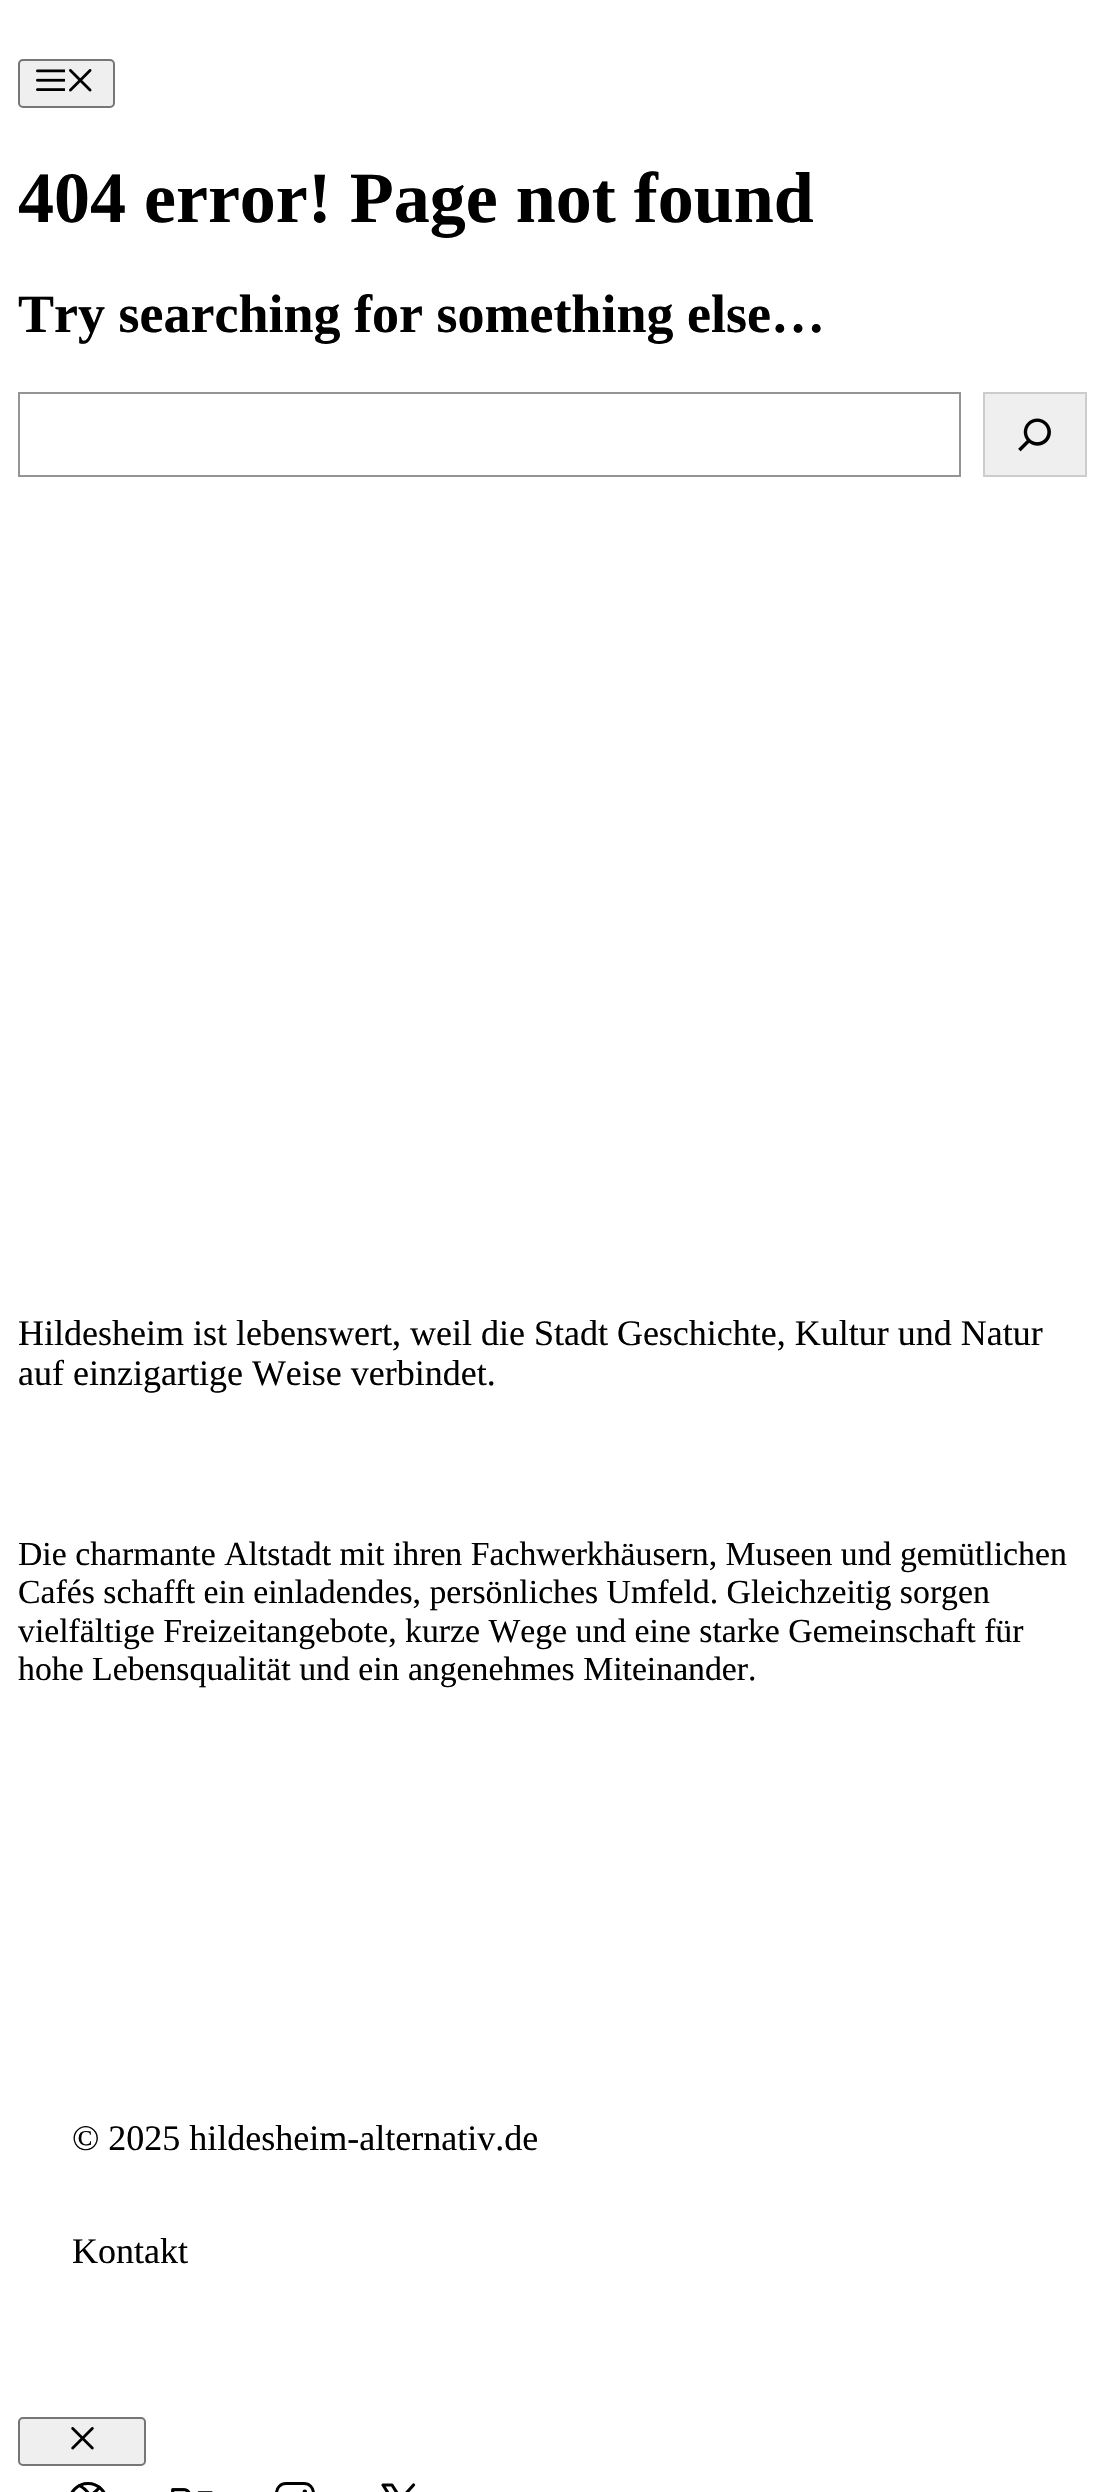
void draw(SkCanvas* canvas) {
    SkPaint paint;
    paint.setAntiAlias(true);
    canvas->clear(0xFFFFFFFF);
    paint.setColor(0xFFEFEFEF);
    canvas->drawRoundRect(SkRect::MakeXYWH(19, 60, 95, 47), 4, 4, paint);
    paint.setStyle(SkPaint::kStroke_Style);
    paint.setStrokeWidth(2);
    paint.setColor(0xFF767676);
    canvas->drawRoundRect(SkRect::MakeXYWH(19, 60, 95, 47), 4, 4, paint);
    canvas->drawImageRect(SkImages::DeferredFromEncodedData(SkData::MakeFromFileName("img1.png")), SkRect::MakeXYWH(36, 69, 29, 22), SkSamplingOptions());
    canvas->drawImageRect(SkImages::DeferredFromEncodedData(SkData::MakeFromFileName("img2.png")), SkRect::MakeXYWH(69, 69, 23, 23), SkSamplingOptions());
    SkFont font1(fontMgr->matchFamilyStyle("Liberation Serif", SkFontStyle::Bold()), 72);
    font1.setSubpixel(true);
    paint.setStyle(SkPaint::kFill_Style);
    paint.setColor(0xFF000000);
    canvas->drawString("404 error! Page not found", 18, 222, font1, paint);
    SkFont font2(fontMgr->matchFamilyStyle("Liberation Serif", SkFontStyle::Bold()), 54);
    font2.setSubpixel(true);
    canvas->drawString("Try searching for something else…", 18, 332, font2, paint);
    paint.setStyle(SkPaint::kStroke_Style);
    paint.setColor(0xFF949494);
    canvas->drawRect(SkRect::MakeXYWH(19, 393, 941, 83), paint);
    paint.setStyle(SkPaint::kFill_Style);
    paint.setColor(0xFFEFEFEF);
    canvas->drawRect(SkRect::MakeXYWH(984, 393, 102, 83), paint);
    paint.setStyle(SkPaint::kStroke_Style);
    paint.setColor(0xFFCCCCCC);
    canvas->drawRect(SkRect::MakeXYWH(984, 393, 102, 83), paint);
    canvas->drawImageRect(SkImages::DeferredFromEncodedData(SkData::MakeFromFileName("img3.png")), SkRect::MakeXYWH(1018, 418, 33, 34), SkSamplingOptions());
    SkFont font3(fontMgr->matchFamilyStyle("Liberation Serif", SkFontStyle::Normal()), 36);
    font3.setSubpixel(true);
    paint.setStyle(SkPaint::kFill_Style);
    paint.setColor(0xFF000000);
    canvas->drawString("Hildesheim ist lebenswert, weil die Stadt Geschichte, Kultur und Natur", 18, 1345, font3, paint);
    canvas->drawString("auf einzigartige Weise verbindet.", 18, 1385, font3, paint);
    SkFont font4(fontMgr->matchFamilyStyle("Liberation Serif", SkFontStyle::Normal()), 33.75f);
    font4.setSubpixel(true);
    canvas->drawString("Die charmante Altstadt mit ihren Fachwerkhäusern, Museen und gemütlichen", 18, 1565, font4, paint);
    canvas->drawString("Cafés schafft ein einladendes, persönliches Umfeld. Gleichzeitig sorgen", 18, 1603, font4, paint);
    canvas->drawString("vielfältige Freizeitangebote, kurze Wege und eine starke Gemeinschaft für", 18, 1642, font4, paint);
    canvas->drawString("hohe Lebensqualität und ein angenehmes Miteinander.", 18, 1680, font4, paint);
    canvas->drawString("© 2025 hildesheim-alternativ.de", 72, 2150, font3, paint);
    canvas->drawString("Kontakt", 72, 2263, font3, paint);
    paint.setColor(0xFFEFEFEF);
    canvas->drawRoundRect(SkRect::MakeXYWH(19, 2418, 126, 47), 4, 4, paint);
    paint.setStyle(SkPaint::kStroke_Style);
    paint.setColor(0xFF767676);
    canvas->drawRoundRect(SkRect::MakeXYWH(19, 2418, 126, 47), 4, 4, paint);
    canvas->drawImageRect(SkImages::DeferredFromEncodedData(SkData::MakeFromFileName("img4.png")), SkRect::MakeXYWH(71, 2427, 23, 23), SkSamplingOptions());
    paint.setStrokeWidth(3.1f);
    paint.setColor(0xFF000000);
    canvas->drawCircle(88, 2502, 18.5f, paint);
    paint.setStrokeCap(SkPaint::kRound_Cap);
    paint.setStrokeJoin(SkPaint::kRound_Join);
    canvas->drawPath(SkPathBuilder().moveTo(76.5f, 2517).cubicTo(83, 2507, 94.5f, 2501, 106.5f, 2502).moveTo(99.5f, 2487.5f).cubicTo(92, 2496.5f, 80.5f, 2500.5f, 69.5f, 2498.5f).moveTo(79.5f, 2485.5f).cubicTo(91.5f, 2492, 97, 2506.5f, 94, 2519.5f).detach(), paint);
    canvas->drawImageRect(SkImages::DeferredFromEncodedData(SkData::MakeFromFileName("img5.png")), SkRect::MakeXYWH(171, 2488, 42, 4), SkSamplingOptions());
    paint.setStrokeWidth(3);
    paint.setStrokeCap(SkPaint::kButt_Cap);
    paint.setStrokeJoin(SkPaint::kMiter_Join);
    canvas->drawRoundRect(SkRect::MakeXYWH(276.5f, 2483.5f, 37, 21), 9.5f, 9.5f, paint);
    paint.setStyle(SkPaint::kFill_Style);
    canvas->drawCircle(304.8f, 2491.9f, 2.3f, paint);
    paint.setStyle(SkPaint::kStroke_Style);
    paint.setStrokeWidth(3.1f);
    paint.setStrokeCap(SkPaint::kRound_Cap);
    paint.setStrokeJoin(SkPaint::kRound_Join);
    canvas->drawPath(SkPathBuilder().moveTo(383, 2485).lineTo(392, 2485).lineTo(413.5f, 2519).lineTo(404.5f, 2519).close().moveTo(395.5f, 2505).lineTo(383, 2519).moveTo(413.5f, 2485).lineTo(401, 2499).detach(), paint);
}
